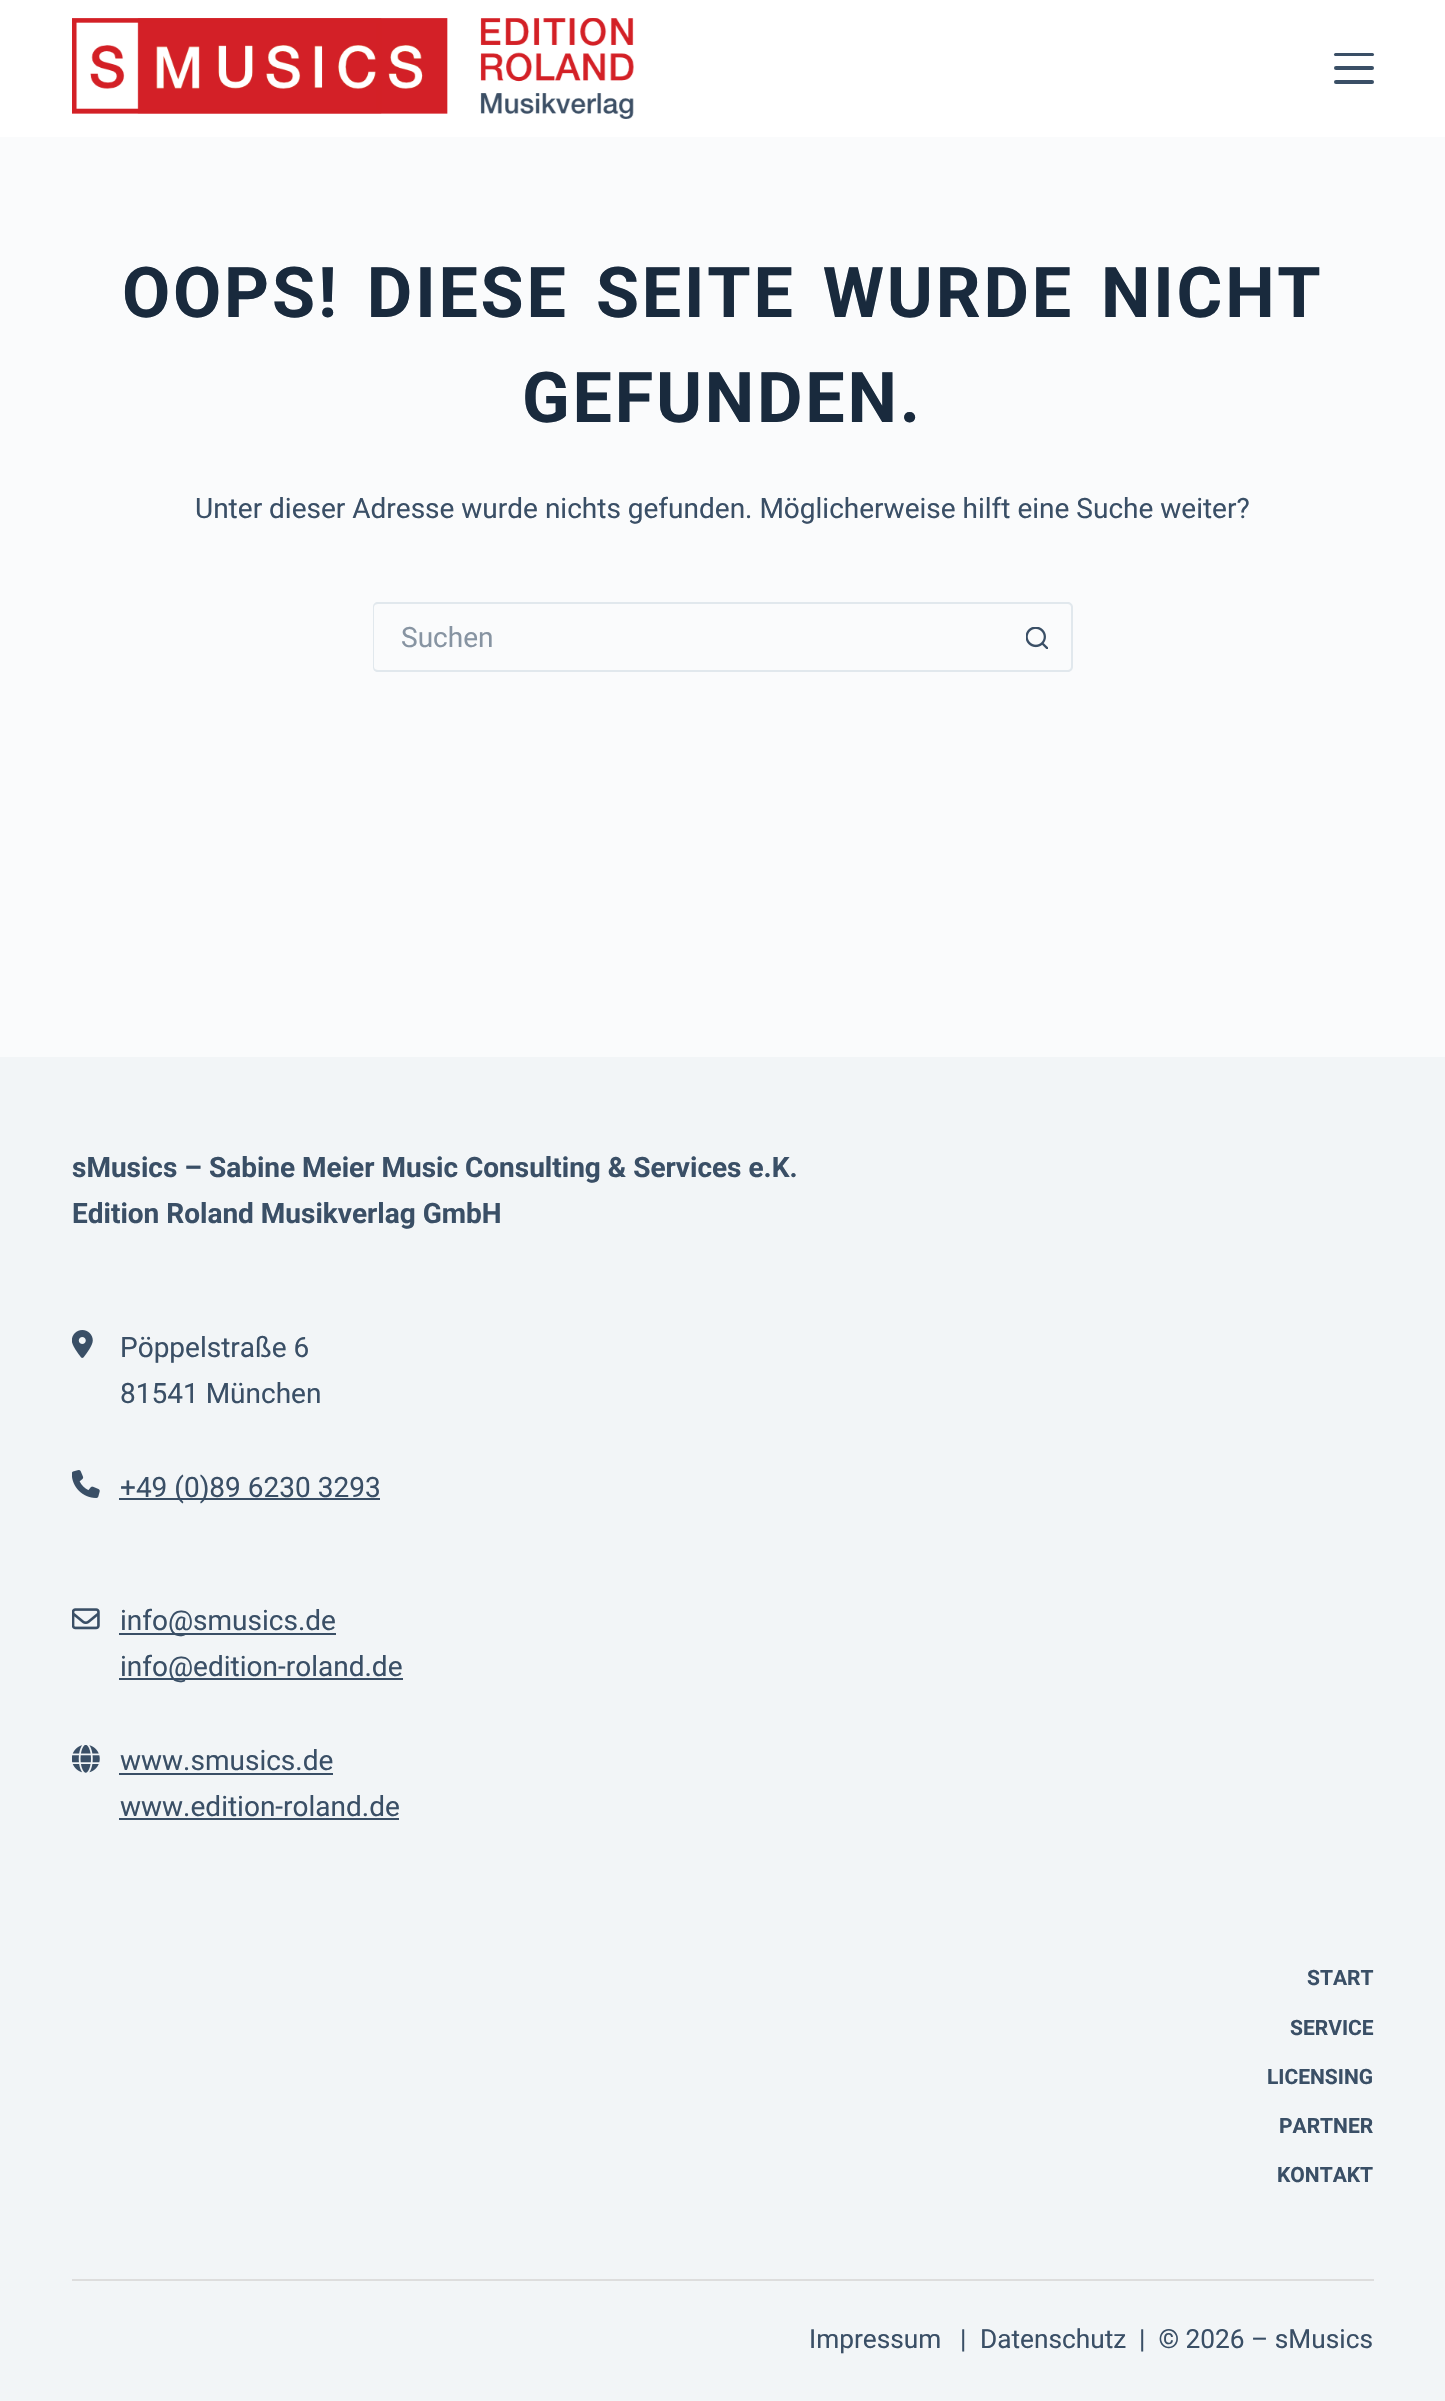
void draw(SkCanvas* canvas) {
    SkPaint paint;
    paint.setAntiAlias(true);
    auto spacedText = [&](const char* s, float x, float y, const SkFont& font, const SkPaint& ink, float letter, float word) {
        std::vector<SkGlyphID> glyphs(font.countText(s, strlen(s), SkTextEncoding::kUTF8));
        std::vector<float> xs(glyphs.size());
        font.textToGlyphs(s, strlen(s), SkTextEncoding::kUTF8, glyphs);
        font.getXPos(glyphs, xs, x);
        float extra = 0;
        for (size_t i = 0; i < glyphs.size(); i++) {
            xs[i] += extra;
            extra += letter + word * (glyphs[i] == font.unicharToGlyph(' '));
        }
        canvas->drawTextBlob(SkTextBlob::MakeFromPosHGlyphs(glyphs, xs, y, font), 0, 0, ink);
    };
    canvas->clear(0xFFFAFBFC);
    paint.setColor(0xFFFFFFFF);
    canvas->drawRect(SkRect::MakeXYWH(0, 0, 1445, 137), paint);
    canvas->drawImageRect(SkImages::DeferredFromEncodedData(SkData::MakeFromFileName("img1.png")), SkRect::MakeXYWH(72, 18, 562, 101), SkSamplingOptions());
    paint.setColor(0xFF3A4F66);
    canvas->drawRoundRect(SkRect::MakeXYWH(1334, 53, 40, 3), 1.5f, 1.5f, paint);
    canvas->drawRoundRect(SkRect::MakeXYWH(1334, 66, 40, 4), 2, 2, paint);
    canvas->drawRoundRect(SkRect::MakeXYWH(1334, 80, 40, 4), 2, 2, paint);
    SkFont font1(fontMgr->matchFamilyStyle("Roboto", SkFontStyle::Bold()), 70);
    font1.setSubpixel(true);
    paint.setColor(0xFF192A3D);
    spacedText("OOPS! DIESE SEITE WURDE NICHT", 122, 317, font1, paint, 2.8f, 7);
    spacedText("GEFUNDEN.", 522, 422, font1, paint, 2.8f, 0);
    SkFont font2(fontMgr->matchFamilyStyle("Roboto", SkFontStyle::Normal()), 28);
    font2.setSubpixel(true);
    paint.setColor(0xFF3A4F66);
    canvas->drawString("Unter dieser Adresse wurde nichts gefunden. Möglicherweise hilft eine Suche weiter?", 195, 518, font2, paint);
    paint.setColor(0xFFE1E8ED);
    canvas->drawPath(SkPathBuilder(SkPathFillType::kEvenOdd).moveTo(378, 602).lineTo(1003, 602).lineTo(1003, 672).lineTo(378, 672).cubicTo(375, 672, 373, 670, 373, 667).lineTo(373, 607).cubicTo(373, 604, 375, 602, 378, 602).close().moveTo(378, 604).lineTo(1003, 604).lineTo(1003, 670).lineTo(378, 670).cubicTo(376, 670, 374, 669, 374, 667).lineTo(374, 607).cubicTo(374, 605, 376, 604, 378, 604).close().detach(), paint);
    paint.setColor(0xFF8794A2);
    canvas->drawString("Suchen", 401, 647, font2, paint);
    paint.setColor(0xFFE1E8ED);
    canvas->drawPath(SkPathBuilder(SkPathFillType::kEvenOdd).moveTo(1003, 602).lineTo(1068, 602).cubicTo(1070, 602, 1073, 604, 1073, 607).lineTo(1073, 667).cubicTo(1073, 670, 1070, 672, 1068, 672).lineTo(1003, 672).close().moveTo(1003, 604).lineTo(1068, 604).cubicTo(1069, 604, 1071, 605, 1071, 607).lineTo(1071, 667).cubicTo(1071, 669, 1069, 670, 1068, 670).lineTo(1003, 670).close().detach(), paint);
    canvas->drawImageRect(SkImages::DeferredFromEncodedData(SkData::MakeFromFileName("img2.png")), SkRect::MakeXYWH(1026, 627, 22, 22), SkSamplingOptions());
    paint.setColor(0xFFF2F5F7);
    canvas->drawRect(SkRect::MakeXYWH(0, 1057, 1445, 1344), paint);
    SkFont font3(fontMgr->matchFamilyStyle("Roboto", SkFontStyle::Bold()), 28);
    font3.setSubpixel(true);
    paint.setColor(0xFF3A4F66);
    canvas->drawString("sMusics – Sabine Meier Music Consulting & Services e.K.", 72, 1177, font3, paint);
    canvas->drawString("Edition Roland Musikverlag GmbH", 72, 1223, font3, paint);
    canvas->drawImageRect(SkImages::DeferredFromEncodedData(SkData::MakeFromFileName("img3.png")), SkRect::MakeXYWH(72, 1330, 21, 28), SkSamplingOptions());
    canvas->drawString("Pöppelstraße 6", 120, 1357, font2, paint);
    canvas->drawString("81541 München", 120, 1403, font2, paint);
    canvas->drawImageRect(SkImages::DeferredFromEncodedData(SkData::MakeFromFileName("img4.png")), SkRect::MakeXYWH(72, 1470, 28, 28), SkSamplingOptions());
    canvas->drawRect(SkRect::MakeXYWH(119, 1498, 261, 2), paint);
    canvas->drawString("+49 (0)89 6230 3293", 120, 1497, font2, paint);
    canvas->drawImageRect(SkImages::DeferredFromEncodedData(SkData::MakeFromFileName("img5.png")), SkRect::MakeXYWH(72, 1608, 28, 22), SkSamplingOptions());
    canvas->drawRect(SkRect::MakeXYWH(119, 1633, 217, 2), paint);
    canvas->drawString("info@smusics.de", 120, 1630, font2, paint);
    canvas->drawRect(SkRect::MakeXYWH(119, 1678, 284, 2), paint);
    canvas->drawString("info@edition-roland.de", 120, 1676, font2, paint);
    canvas->drawImageRect(SkImages::DeferredFromEncodedData(SkData::MakeFromFileName("img6.png")), SkRect::MakeXYWH(72, 1745, 28, 28), SkSamplingOptions());
    canvas->drawString("www.smusics.de", 120, 1770, font2, paint);
    canvas->drawRect(SkRect::MakeXYWH(119, 1773, 214, 2), paint);
    canvas->drawString("www.edition-roland.de", 120, 1816, font2, paint);
    canvas->drawRect(SkRect::MakeXYWH(119, 1818, 280, 2), paint);
    SkFont font4(fontMgr->matchFamilyStyle("Roboto", SkFontStyle::Bold()), 21);
    font4.setSubpixel(true);
    canvas->drawString("START", 1307, 1985, font4, paint);
    canvas->drawString("SERVICE", 1290, 2035, font4, paint);
    canvas->drawString("LICENSING", 1267, 2084, font4, paint);
    canvas->drawString("PARTNER", 1279, 2133, font4, paint);
    canvas->drawString("KONTAKT", 1277, 2182, font4, paint);
    paint.setColor(0xFFDDDDDD);
    canvas->drawRect(SkRect::MakeXYWH(72, 2279, 1302, 2), paint);
    SkFont font5(fontMgr->matchFamilyStyle("Roboto", SkFontStyle::Normal()), 26.25f);
    font5.setSubpixel(true);
    paint.setColor(0xFF3A4F66);
    canvas->drawString("Impressum", 809, 2348, font5, paint);
    canvas->drawString("|", 960, 2348, font5, paint);
    canvas->drawString("Datenschutz", 980, 2348, font5, paint);
    canvas->drawString("|  © 2026 – sMusics", 1139, 2348, font5, paint);
}
